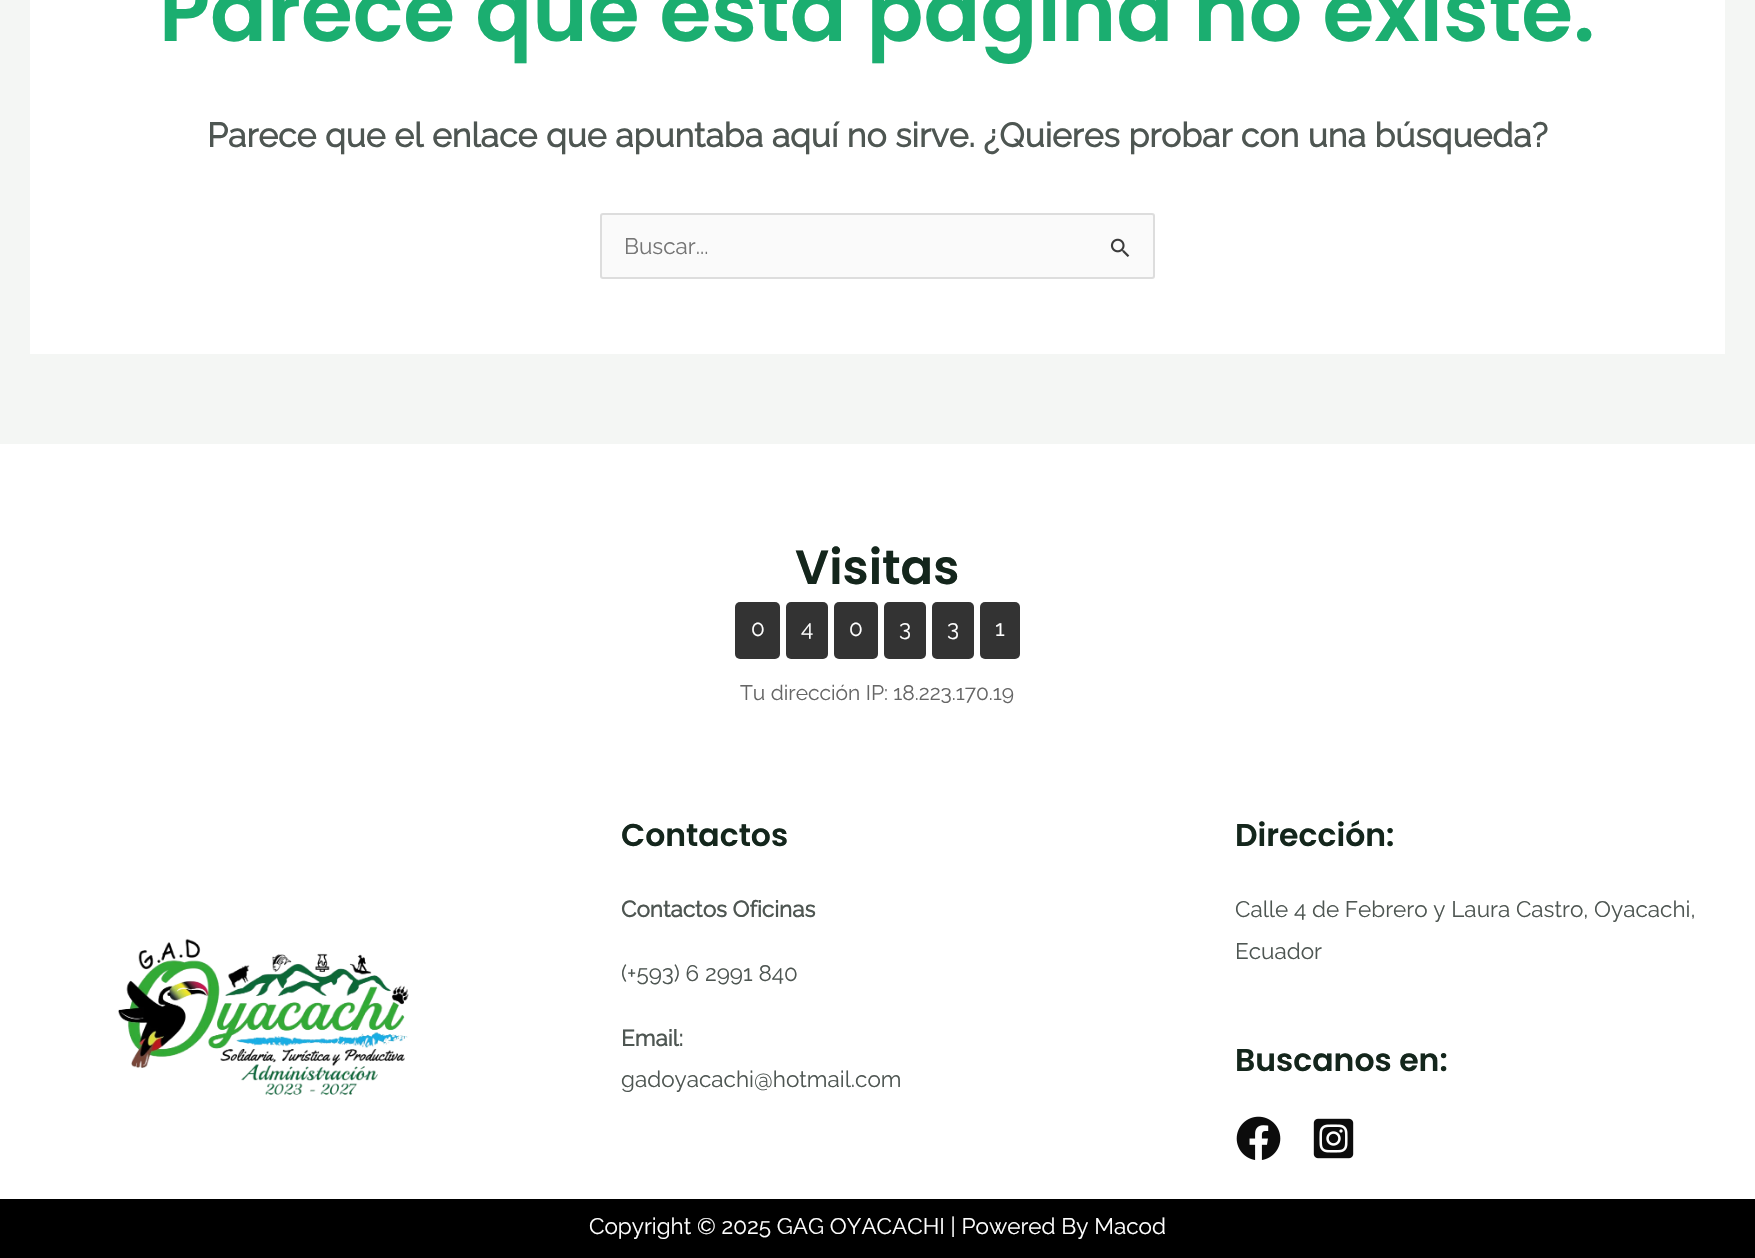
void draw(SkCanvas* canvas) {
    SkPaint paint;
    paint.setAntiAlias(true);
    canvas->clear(0xFFF4F6F4);
    paint.setColor(0xFFFFFFFF);
    canvas->drawRect(SkRect::MakeXYWH(30, 0, 1695, 354), paint);
    SkFont font1(fontMgr->matchFamilyStyle("Poppins", SkFontStyle(600, SkFontStyle::kNormal_Width, SkFontStyle::kUpright_Slant)), 84);
    font1.setSubpixel(true);
    paint.setColor(0xFF1BAE70);
    canvas->drawString("Parece que esta página no existe.", 159, 41, font1, paint);
    SkFont font2(fontMgr->matchFamilyStyle("Raleway", SkFontStyle::Bold()), 33.75f);
    font2.setSubpixel(true);
    paint.setColor(0xFF4E5652);
    canvas->drawString("Parece que el enlace que apuntaba aquí no sirve. ¿Quieres probar con una búsqueda?", 207, 147, font2, paint);
    paint.setColor(0xFFFAFAFA);
    canvas->drawRoundRect(SkRect::MakeXYWH(601, 214, 553, 64), 2, 2, paint);
    paint.setStyle(SkPaint::kStroke_Style);
    paint.setStrokeWidth(2);
    paint.setColor(0xFFDDDDDD);
    canvas->drawRoundRect(SkRect::MakeXYWH(601, 214, 553, 64), 2, 2, paint);
    SkFont font3(fontMgr->matchFamilyStyle("Raleway", SkFontStyle(100, SkFontStyle::kNormal_Width, SkFontStyle::kUpright_Slant)), 22.5f);
    font3.setSubpixel(true);
    paint.setStyle(SkPaint::kFill_Style);
    paint.setColor(0xFF757575);
    canvas->drawString("Buscar...", 624, 254, font3, paint);
    canvas->drawImageRect(SkImages::DeferredFromEncodedData(SkData::MakeFromFileName("img1.png")), SkRect::MakeXYWH(1110, 238, 20, 19), SkSamplingOptions());
    paint.setColor(0xFFFFFFFF);
    canvas->drawRect(SkRect::MakeXYWH(0, 444, 1755, 755), paint);
    SkFont font4(fontMgr->matchFamilyStyle("Poppins", SkFontStyle(600, SkFontStyle::kNormal_Width, SkFontStyle::kUpright_Slant)), 48);
    font4.setSubpixel(true);
    paint.setColor(0xFF14261C);
    canvas->drawString("Visitas", 795, 584, font4, paint);
    paint.setColor(0xFF333333);
    canvas->drawRoundRect(SkRect::MakeXYWH(735, 602, 45, 57), 5, 5, paint);
    paint.setColor(0xFFFFFFFF);
    canvas->drawString("0", 751, 636, font3, paint);
    paint.setColor(0xFF333333);
    canvas->drawRoundRect(SkRect::MakeXYWH(786, 602, 42, 57), 5, 5, paint);
    paint.setColor(0xFFFFFFFF);
    canvas->drawString("4", 801, 636, font3, paint);
    paint.setColor(0xFF333333);
    canvas->drawRoundRect(SkRect::MakeXYWH(834, 602, 44, 57), 5, 5, paint);
    paint.setColor(0xFFFFFFFF);
    canvas->drawString("0", 849, 636, font3, paint);
    paint.setColor(0xFF333333);
    canvas->drawRoundRect(SkRect::MakeXYWH(884, 602, 42, 57), 5, 5, paint);
    paint.setColor(0xFFFFFFFF);
    canvas->drawString("3", 899, 636, font3, paint);
    paint.setColor(0xFF333333);
    canvas->drawRoundRect(SkRect::MakeXYWH(932, 602, 42, 57), 5, 5, paint);
    paint.setColor(0xFFFFFFFF);
    canvas->drawString("3", 947, 636, font3, paint);
    paint.setColor(0xFF333333);
    canvas->drawRoundRect(SkRect::MakeXYWH(980, 602, 40, 57), 5, 5, paint);
    paint.setColor(0xFFFFFFFF);
    canvas->drawString("1", 995, 636, font3, paint);
    SkFont font5(fontMgr->matchFamilyStyle("Raleway", SkFontStyle(100, SkFontStyle::kNormal_Width, SkFontStyle::kUpright_Slant)), 21);
    font5.setSubpixel(true);
    paint.setColor(0xFF666666);
    canvas->drawString("Tu dirección IP: 18.223.170.19", 740, 700, font5, paint);
    canvas->drawImageRect(SkImages::DeferredFromEncodedData(SkData::MakeFromFileName("img2.png")), SkRect::MakeXYWH(118, 938, 291, 157), SkSamplingOptions());
    SkFont font6(fontMgr->matchFamilyStyle("Poppins", SkFontStyle(600, SkFontStyle::kNormal_Width, SkFontStyle::kUpright_Slant)), 31.5f);
    font6.setSubpixel(true);
    paint.setColor(0xFF14261C);
    canvas->drawString("Contactos", 621, 846, font6, paint);
    SkFont font7(fontMgr->matchFamilyStyle("Raleway", SkFontStyle::Bold()), 22.5f);
    font7.setSubpixel(true);
    paint.setColor(0xFF4E5652);
    canvas->drawString("Contactos Oficinas", 621, 917, font7, paint);
    canvas->drawString("(+593) 6 2991 840", 621, 981, font3, paint);
    canvas->drawString("Email:", 621, 1046, font7, paint);
    canvas->drawString("gadoyacachi@hotmail.com", 621, 1087, font3, paint);
    paint.setColor(0xFF14261C);
    canvas->drawString("Dirección:", 1235, 846, font6, paint);
    paint.setColor(0xFF4E5652);
    canvas->drawString("Calle 4 de Febrero y Laura Castro, Oyacachi,", 1235, 917, font3, paint);
    canvas->drawString("Ecuador", 1235, 959, font3, paint);
    paint.setColor(0xFF14261C);
    canvas->drawString("Buscanos en:", 1235, 1071, font6, paint);
    canvas->drawImageRect(SkImages::DeferredFromEncodedData(SkData::MakeFromFileName("img3.png")), SkRect::MakeXYWH(1236, 1116, 45, 44), SkSamplingOptions());
    canvas->drawImageRect(SkImages::DeferredFromEncodedData(SkData::MakeFromFileName("img4.png")), SkRect::MakeXYWH(1313, 1118, 41, 41), SkSamplingOptions());
    paint.setColor(0xFF000000);
    canvas->drawRect(SkRect::MakeXYWH(0, 1199, 1755, 59), paint);
    paint.setColor(0xFFFFFFFF);
    canvas->drawString("Copyright © 2025 GAG OYACACHI | Powered By Macod", 589, 1234, font3, paint);
}
